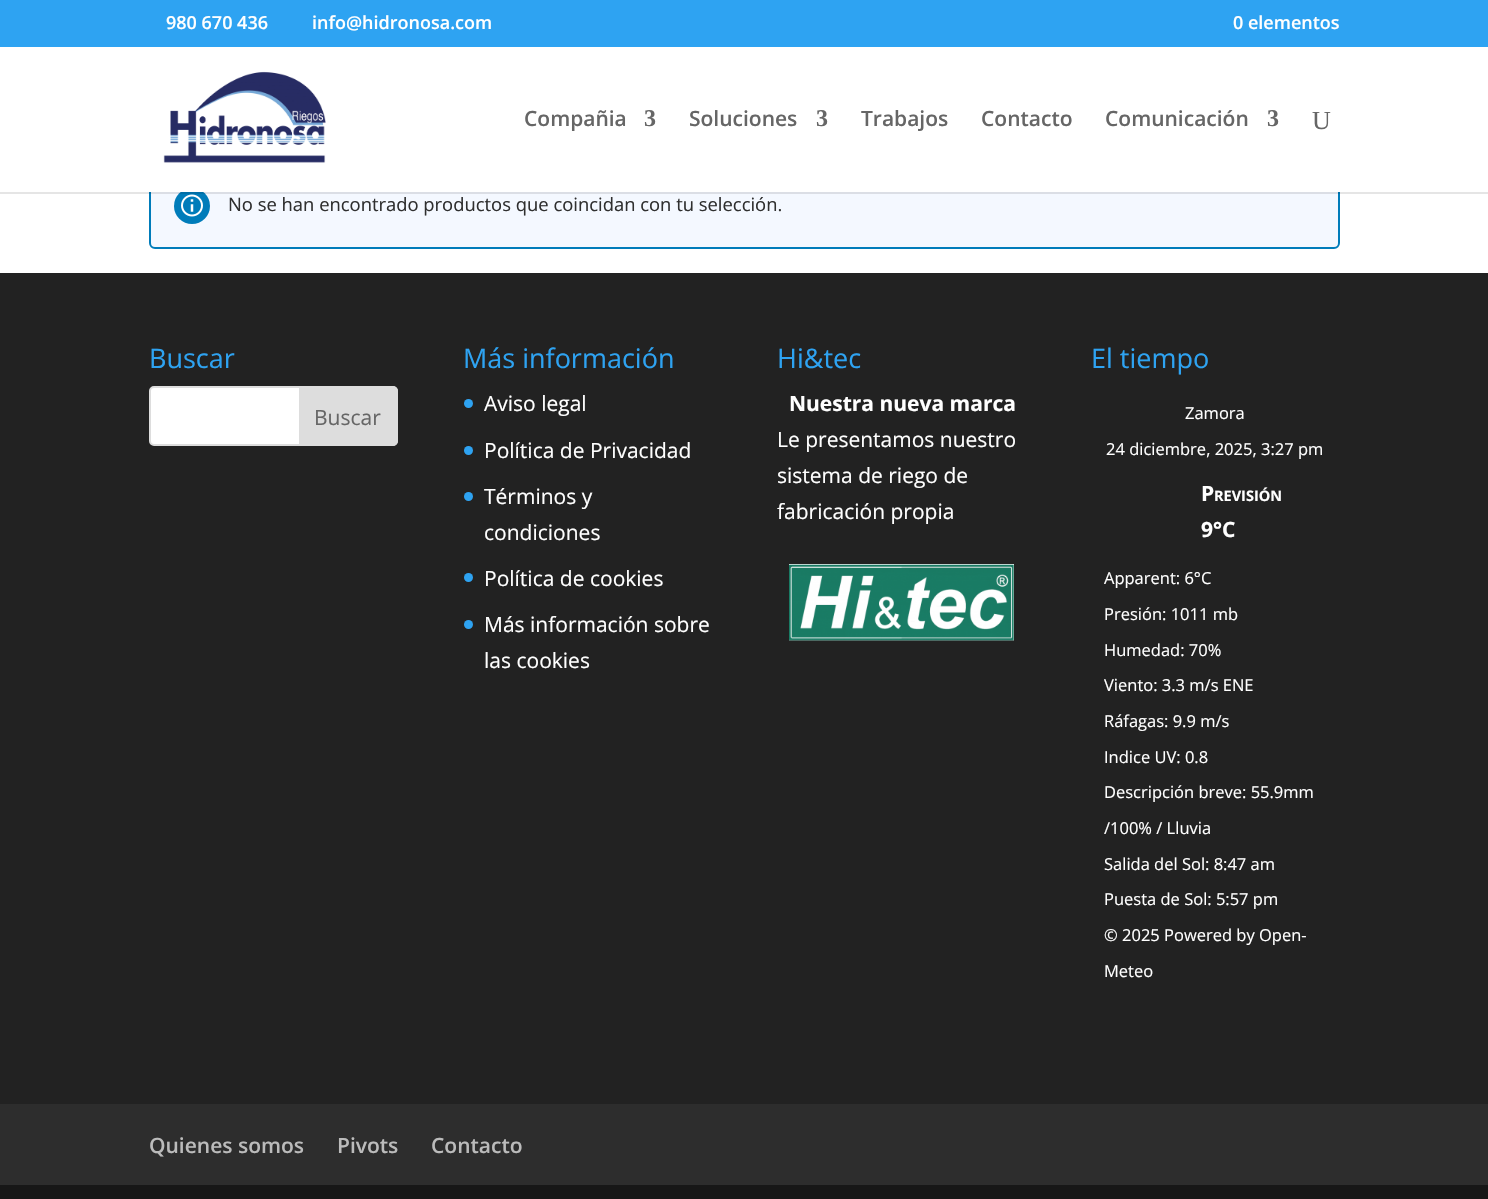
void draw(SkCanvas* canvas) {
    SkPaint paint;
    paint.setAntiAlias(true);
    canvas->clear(0xFFFFFFFF);
    paint.setColor(0xFF2EA3F2);
    canvas->drawRect(SkRect::MakeXYWH(0, 0, 1488, 47), paint);
    SkFont font1(fontMgr->matchFamilyStyle("Open Sans", SkFontStyle(600, SkFontStyle::kNormal_Width, SkFontStyle::kUpright_Slant)), 18);
    font1.setSubpixel(true);
    paint.setColor(0xFFFFFFFF);
    canvas->drawString("980 670 436", 166, 29, font1, paint);
    canvas->drawString("info@hidronosa.com", 312, 29, font1, paint);
    canvas->drawString("0 elementos", 1233, 29, font1, paint);
    paint.setColor(0xFFF4F8FF);
    canvas->drawRoundRect(SkRect::MakeXYWH(150, 163, 1189, 85), 5, 5, paint);
    paint.setStyle(SkPaint::kStroke_Style);
    paint.setStrokeWidth(2);
    paint.setColor(0xFF007CBA);
    canvas->drawRoundRect(SkRect::MakeXYWH(150, 163, 1189, 85), 5, 5, paint);
    paint.setStyle(SkPaint::kFill_Style);
    canvas->drawCircle(192, 206, 18, paint);
    paint.setColor(0x1A000000);
    canvas->drawRect(SkRect::MakeXYWH(0, 192, 1488, 2), paint);
    paint.setColor(0xFFFFFFFF);
    canvas->drawRect(SkRect::MakeXYWH(149, 162, 1191, 30), paint);
    canvas->drawImageRect(SkImages::DeferredFromEncodedData(SkData::MakeFromFileName("img1.png")), SkRect::MakeXYWH(163, 71, 163, 92), SkSamplingOptions());
    SkFont font2(fontMgr->matchFamilyStyle("Open Sans", SkFontStyle(600, SkFontStyle::kNormal_Width, SkFontStyle::kUpright_Slant)), 21);
    font2.setSubpixel(true);
    paint.setColor(0xFF666666);
    canvas->drawString("Compañia", 524, 126, font2, paint);
    SkFont font3(fontMgr->matchFamilyStyle("Liberation Serif", SkFontStyle::Bold()), 24);
    font3.setSubpixel(true);
    canvas->drawString("3", 644, 126, font3, paint);
    canvas->drawString("Soluciones", 689, 126, font2, paint);
    canvas->drawString("3", 816, 126, font3, paint);
    canvas->drawString("Trabajos", 861, 126, font2, paint);
    canvas->drawString("Contacto", 981, 126, font2, paint);
    canvas->drawString("Comunicación", 1105, 126, font2, paint);
    canvas->drawString("3", 1267, 126, font3, paint);
    SkFont font4(fontMgr->matchFamilyStyle("Liberation Serif", SkFontStyle::Normal()), 26);
    font4.setSubpixel(true);
    canvas->drawString("U", 1312, 129, font4, paint);
    canvas->drawImageRect(SkImages::DeferredFromEncodedData(SkData::MakeFromFileName("img2.png")), SkRect::MakeXYWH(181, 194, 22, 23), SkSamplingOptions());
    SkFont font5(fontMgr->matchFamilyStyle("Open Sans", SkFontStyle::Normal()), 18.4f);
    font5.setSubpixel(true);
    paint.setColor(0xFF2F2F2F);
    canvas->drawString("No se han encontrado productos que coincidan con tu selección.", 228, 211, font5, paint);
    paint.setColor(0xFF222222);
    canvas->drawRect(SkRect::MakeXYWH(0, 273, 1488, 831), paint);
    SkFont font6(fontMgr->matchFamilyStyle("Open Sans", SkFontStyle::Normal()), 27);
    font6.setSubpixel(true);
    paint.setColor(0xFF2EA3F2);
    canvas->drawString("Buscar", 149, 368, font6, paint);
    paint.setColor(0xFFFFFFFF);
    canvas->drawRoundRect(SkRect::MakeXYWH(150, 387, 247, 58), 4, 4, paint);
    paint.setStyle(SkPaint::kStroke_Style);
    paint.setColor(0xFFDDDDDD);
    canvas->drawRoundRect(SkRect::MakeXYWH(150, 387, 247, 58), 4, 4, paint);
    paint.setStyle(SkPaint::kFill_Style);
    canvas->drawPath(SkPathBuilder().moveTo(300, 387).lineTo(393, 387).cubicTo(395, 387, 397, 389, 397, 391).lineTo(397, 441).cubicTo(397, 443, 395, 445, 393, 445).lineTo(300, 445).close().detach(), paint);
    paint.setStyle(SkPaint::kStroke_Style);
    canvas->drawPath(SkPathBuilder().moveTo(300, 387).lineTo(393, 387).cubicTo(395, 387, 397, 389, 397, 391).lineTo(397, 441).cubicTo(397, 443, 395, 445, 393, 445).lineTo(300, 445).close().detach(), paint);
    SkFont font7(fontMgr->matchFamilyStyle("Open Sans", SkFontStyle::Normal()), 21);
    font7.setSubpixel(true);
    paint.setStyle(SkPaint::kFill_Style);
    paint.setColor(0xFF666666);
    canvas->drawString("Buscar", 314, 425, font7, paint);
    paint.setColor(0xFF2EA3F2);
    canvas->drawString("Más información", 463, 368, font6, paint);
    canvas->drawCircle(468.5f, 403.5f, 4.5f, paint);
    paint.setColor(0xFFFFFFFF);
    canvas->drawString("Aviso legal", 484, 411, font7, paint);
    paint.setColor(0xFF2EA3F2);
    canvas->drawCircle(468.5f, 450.5f, 4.5f, paint);
    paint.setColor(0xFFFFFFFF);
    canvas->drawString("Política de Privacidad", 484, 458, font7, paint);
    paint.setColor(0xFF2EA3F2);
    canvas->drawCircle(468.5f, 496.5f, 4.5f, paint);
    paint.setColor(0xFFFFFFFF);
    canvas->drawString("Términos y", 484, 504, font7, paint);
    canvas->drawString("condiciones", 484, 540, font7, paint);
    paint.setColor(0xFF2EA3F2);
    canvas->drawCircle(468.5f, 577.5f, 4.5f, paint);
    paint.setColor(0xFFFFFFFF);
    canvas->drawString("Política de cookies", 484, 586, font7, paint);
    paint.setColor(0xFF2EA3F2);
    canvas->drawCircle(468.5f, 624.5f, 4.5f, paint);
    paint.setColor(0xFFFFFFFF);
    canvas->drawString("Más información sobre", 484, 632, font7, paint);
    canvas->drawString("las cookies", 484, 668, font7, paint);
    paint.setColor(0xFF2EA3F2);
    canvas->drawString("Hi&tec", 777, 368, font6, paint);
    SkFont font8(fontMgr->matchFamilyStyle("Open Sans", SkFontStyle::Bold()), 21);
    font8.setSubpixel(true);
    paint.setColor(0xFFFFFFFF);
    canvas->drawString("Nuestra nueva marca", 789, 411, font8, paint);
    canvas->drawString("Le presentamos nuestro", 777, 447, font7, paint);
    canvas->drawString("sistema de riego de", 777, 483, font7, paint);
    canvas->drawString("fabricación propia", 777, 519, font7, paint);
    canvas->drawImageRect(SkImages::DeferredFromEncodedData(SkData::MakeFromFileName("img3.png")), SkRect::MakeXYWH(789, 564, 225, 77), SkSamplingOptions());
    paint.setColor(0xFF2EA3F2);
    canvas->drawString("El tiempo", 1091, 368, font6, paint);
    SkFont font9(fontMgr->matchFamilyStyle("Open Sans", SkFontStyle::Normal()), 16.5f);
    font9.setSubpixel(true);
    paint.setColor(0xFFFFFFFF);
    canvas->drawString("Zamora", 1185, 419, font9, paint);
    canvas->drawString("24 diciembre, 2025, 3:27 pm", 1106, 455, font9, paint);
    canvas->drawString("P", 1201, 501, font8, paint);
    SkFont font10(fontMgr->matchFamilyStyle("Open Sans", SkFontStyle::Bold()), 14.5f);
    font10.setSubpixel(true);
    canvas->drawString("REVISIÓN", 1214, 501, font10, paint);
    canvas->drawString("9°C", 1201, 537, font8, paint);
    canvas->drawString("Apparent: 6°C", 1104, 584, font9, paint);
    canvas->drawString("Presión: 1011 mb", 1104, 620, font9, paint);
    canvas->drawString("Humedad: 70%", 1104, 656, font9, paint);
    canvas->drawString("Viento: 3.3 m/s ENE", 1104, 691, font9, paint);
    canvas->drawString("Ráfagas: 9.9 m/s", 1104, 727, font9, paint);
    canvas->drawString("Indice UV: 0.8", 1104, 763, font9, paint);
    canvas->drawString("Descripción breve: 55.9mm", 1104, 798, font9, paint);
    canvas->drawString("/100% / Lluvia", 1104, 834, font9, paint);
    canvas->drawString("Salida del Sol: 8:47 am", 1104, 870, font9, paint);
    canvas->drawString("Puesta de Sol: 5:57 pm", 1104, 905, font9, paint);
    canvas->drawString("© 2025 Powered by Open-", 1104, 941, font9, paint);
    canvas->drawString("Meteo", 1104, 977, font9, paint);
    paint.setColor(0xFF2D2D2D);
    canvas->drawRect(SkRect::MakeXYWH(0, 1104, 1488, 81), paint);
    paint.setColor(0xFFBBBBBB);
    canvas->drawString("Quienes somos", 149, 1153, font2, paint);
    canvas->drawString("Pivots", 337, 1153, font2, paint);
    canvas->drawString("Contacto", 431, 1153, font2, paint);
    paint.setColor(0xFF171717);
    canvas->drawRect(SkRect::MakeXYWH(0, 1185, 1488, 14), paint);
}
